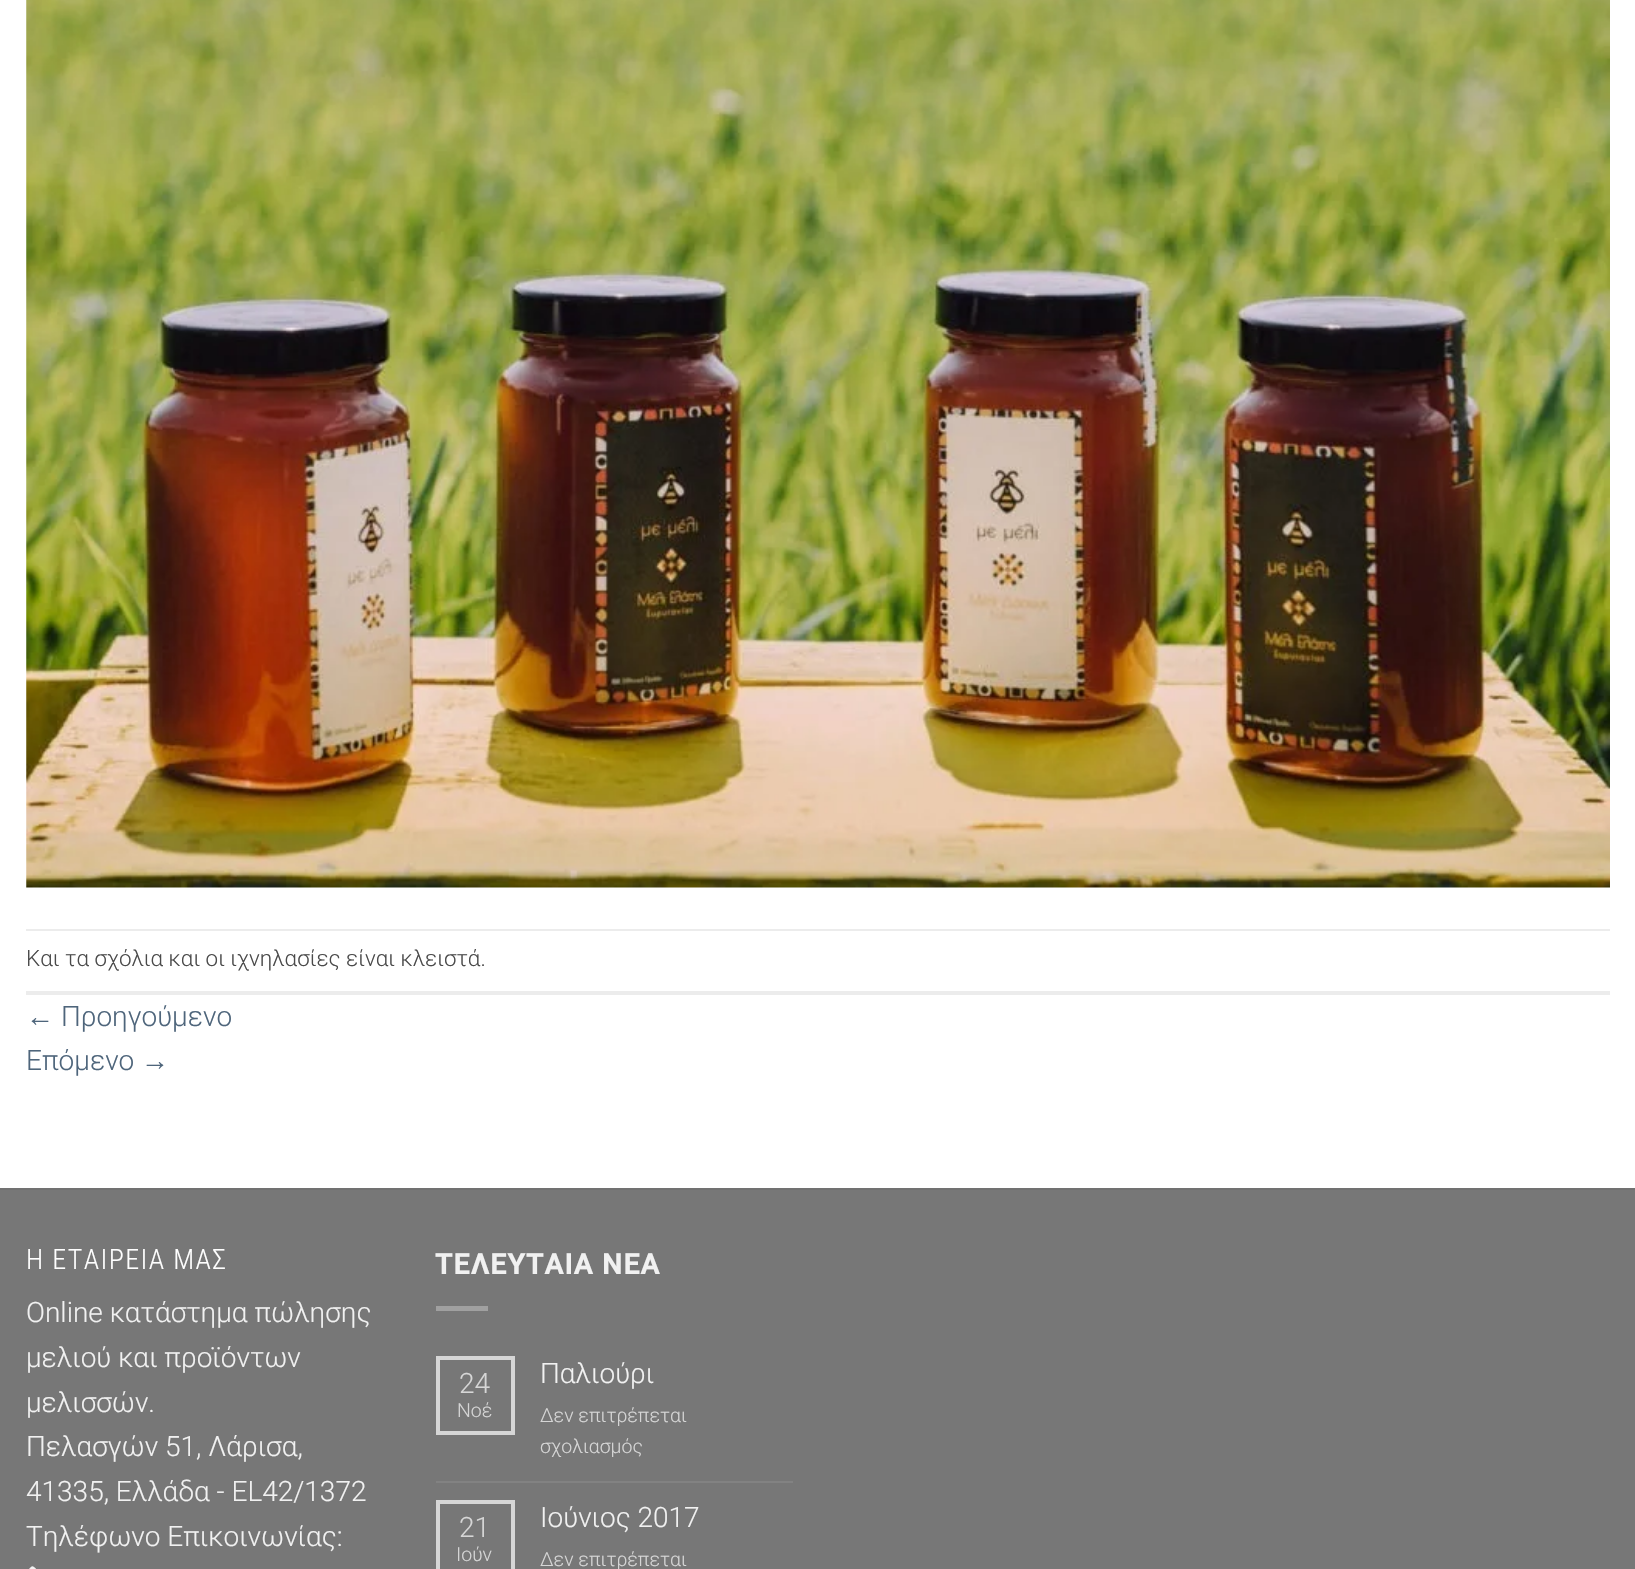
void draw(SkCanvas* canvas) {
    SkPaint paint;
    paint.setAntiAlias(true);
    auto spacedText = [&](const char* s, float x, float y, const SkFont& font, const SkPaint& ink, float letter, float word) {
        std::vector<SkGlyphID> glyphs(font.countText(s, strlen(s), SkTextEncoding::kUTF8));
        std::vector<float> xs(glyphs.size());
        font.textToGlyphs(s, strlen(s), SkTextEncoding::kUTF8, glyphs);
        font.getXPos(glyphs, xs, x);
        float extra = 0;
        for (size_t i = 0; i < glyphs.size(); i++) {
            xs[i] += extra;
            extra += letter + word * (glyphs[i] == font.unicharToGlyph(' '));
        }
        canvas->drawTextBlob(SkTextBlob::MakeFromPosHGlyphs(glyphs, xs, y, font), 0, 0, ink);
    };
    canvas->clear(0xFFFFFFFF);
    canvas->drawImageRect(SkImages::DeferredFromEncodedData(SkData::MakeFromFileName("img1.png")), SkRect::MakeXYWH(26, 0, 1584, 888), SkSamplingOptions());
    paint.setColor(0xFFECECEC);
    canvas->drawRect(SkRect::MakeXYWH(26, 929, 1584, 2), paint);
    canvas->drawRect(SkRect::MakeXYWH(26, 991, 1584, 4), paint);
    SkFont font1(fontMgr->matchFamilyStyle("Roboto", SkFontStyle(300, SkFontStyle::kNormal_Width, SkFontStyle::kUpright_Slant)), 22.4f);
    font1.setSubpixel(true);
    paint.setColor(0xFF4A4A4A);
    canvas->drawString("Και τα σχόλια και οι ιχνηλασίες είναι κλειστά.", 26, 966, font1, paint);
    SkFont font2(fontMgr->matchFamilyStyle("Liberation Sans", SkFontStyle::Normal()), 28);
    font2.setSubpixel(true);
    paint.setColor(0xFF4E657B);
    canvas->drawString("←", 26, 1026, font2, paint);
    SkFont font3(fontMgr->matchFamilyStyle("Roboto", SkFontStyle(300, SkFontStyle::kNormal_Width, SkFontStyle::kUpright_Slant)), 28);
    font3.setSubpixel(true);
    canvas->drawString("Προηγούμενο", 61, 1026, font3, paint);
    canvas->drawString("Επόμενο", 26, 1070, font3, paint);
    canvas->drawString("→", 141, 1070, font2, paint);
    paint.setColor(0xFF777777);
    canvas->drawRect(SkRect::MakeXYWH(0, 1190, 1635, 379), paint);
    paint.setColor(0xFF717171);
    canvas->drawRect(SkRect::MakeXYWH(0, 1188, 1635, 2), paint);
    SkFont font4(fontMgr->matchFamilyStyle("Roboto Condensed", SkFontStyle(300, SkFontStyle::kNormal_Width, SkFontStyle::kUpright_Slant)), 28);
    font4.setSubpixel(true);
    paint.setColor(0xFFFFFFFF);
    spacedText("Η ΕΤΑΙΡΕΙΑ ΜΑΣ", 26, 1269, font4, paint, 1.4f, 0);
    paint.setColor(0xFFF1F1F1);
    canvas->drawString("Online κατάστημα πώλησης", 26, 1322, font3, paint);
    canvas->drawString("μελιού και προϊόντων", 26, 1367, font3, paint);
    canvas->drawString("μελισσών.", 26, 1412, font3, paint);
    canvas->drawString("Πελασγών 51, Λάρισα,", 26, 1456, font3, paint);
    canvas->drawString("41335, Ελλάδα - EL42/1372", 26, 1501, font3, paint);
    canvas->drawString("Τηλέφωνο Επικοινωνίας:", 26, 1546, font3, paint);
    canvas->drawImageRect(SkImages::DeferredFromEncodedData(SkData::MakeFromFileName("img2.png")), SkRect::MakeXYWH(29, 1566, 7, 3), SkSamplingOptions());
    SkFont font5(fontMgr->matchFamilyStyle("Roboto", SkFontStyle::Bold()), 28);
    font5.setSubpixel(true);
    spacedText("ΤΕΛΕΥΤΑΙΑ ΝΕΑ", 435, 1274, font5, paint, 1.4f, 0);
    paint.setColor(0xFFA0A0A0);
    canvas->drawRect(SkRect::MakeXYWH(436, 1306, 52, 5), paint);
    paint.setStyle(SkPaint::kStroke_Style);
    paint.setStrokeWidth(4);
    paint.setColor(0xFFD6D6D6);
    canvas->drawRect(SkRect::MakeXYWH(438, 1358, 75, 75), paint);
    paint.setStyle(SkPaint::kFill_Style);
    canvas->drawString("24", 459, 1393, font3, paint);
    SkFont font6(fontMgr->matchFamilyStyle("Roboto", SkFontStyle(300, SkFontStyle::kNormal_Width, SkFontStyle::kUpright_Slant)), 19.5f);
    font6.setSubpixel(true);
    canvas->drawString("Νοέ", 457, 1417, font6, paint);
    paint.setColor(0xFFF1F1F1);
    canvas->drawString("Παλιούρι", 540, 1383, font3, paint);
    paint.setColor(0xFFD6D6D6);
    canvas->drawString("Δεν επιτρέπεται", 540, 1422, font6, paint);
    canvas->drawString("σχολιασμός", 540, 1453, font6, paint);
    paint.setColor(0xFF828282);
    canvas->drawRect(SkRect::MakeXYWH(436, 1481, 357, 2), paint);
    paint.setStyle(SkPaint::kStroke_Style);
    paint.setColor(0xFFD6D6D6);
    canvas->drawRect(SkRect::MakeXYWH(438, 1502, 75, 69), paint);
    paint.setStyle(SkPaint::kFill_Style);
    canvas->drawString("21", 459, 1537, font3, paint);
    canvas->drawString("Ιούν", 456, 1561, font6, paint);
    paint.setColor(0xFFF1F1F1);
    canvas->drawString("Ιούνιος 2017", 540, 1527, font3, paint);
    paint.setColor(0xFFD6D6D6);
    canvas->drawString("Δεν επιτρέπεται", 540, 1566, font6, paint);
}
